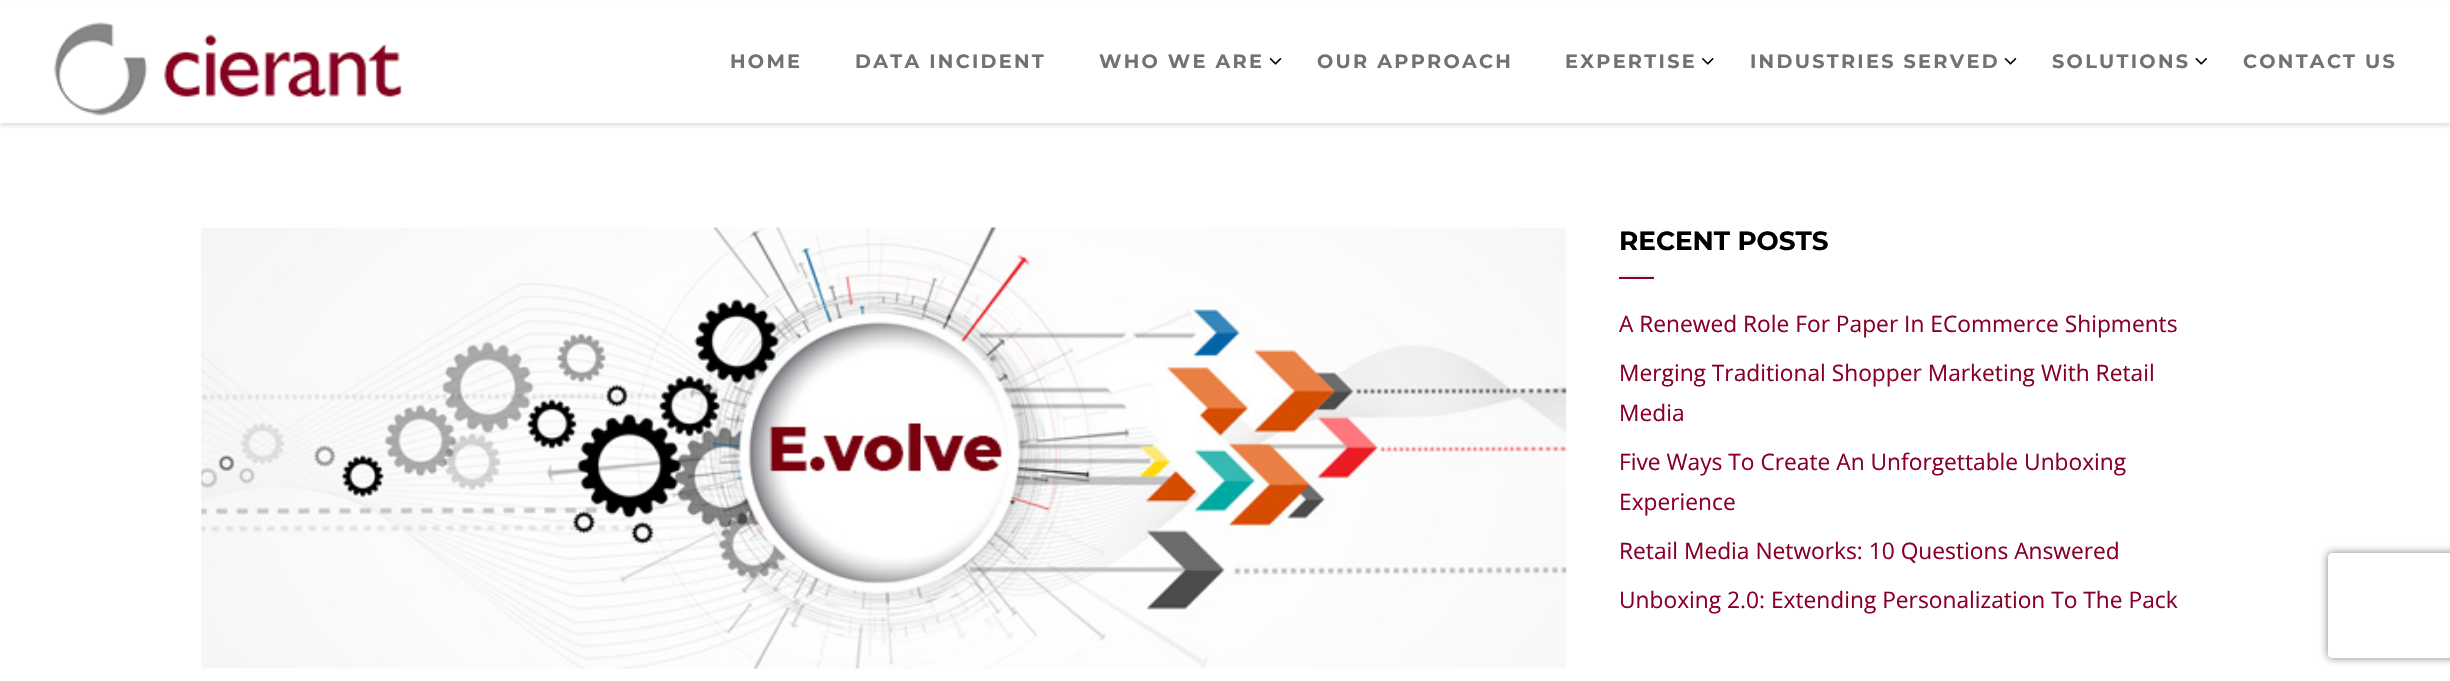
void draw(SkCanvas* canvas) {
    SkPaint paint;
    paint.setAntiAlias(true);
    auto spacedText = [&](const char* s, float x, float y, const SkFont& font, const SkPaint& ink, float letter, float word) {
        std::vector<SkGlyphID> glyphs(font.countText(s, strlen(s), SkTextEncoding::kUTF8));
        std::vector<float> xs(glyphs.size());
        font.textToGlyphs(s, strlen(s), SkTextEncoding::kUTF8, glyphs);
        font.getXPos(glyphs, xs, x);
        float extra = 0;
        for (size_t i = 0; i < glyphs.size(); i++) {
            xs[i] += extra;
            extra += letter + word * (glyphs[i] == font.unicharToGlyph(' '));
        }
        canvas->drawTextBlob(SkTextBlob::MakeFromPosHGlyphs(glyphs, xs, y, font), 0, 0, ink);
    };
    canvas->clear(0xFFFFFFFF);
    paint.setColor(0x1F0B191C);
    paint.setMaskFilter(SkMaskFilter::MakeBlur(kNormal_SkBlurStyle, 2));
    canvas->drawRect(SkRect::MakeXYWH(0, 4, 2450, 122), paint);
    paint.setMaskFilter(nullptr);
    paint.setColor(0xFFFFFFFF);
    canvas->drawRect(SkRect::MakeXYWH(0, 1, 2450, 122), paint);
    canvas->drawImageRect(SkImages::DeferredFromEncodedData(SkData::MakeFromFileName("img1.png")), SkRect::MakeXYWH(54, 22, 348, 94), SkSamplingOptions());
    SkFont font1(fontMgr->matchFamilyStyle("Montserrat", SkFontStyle::Bold()), 19.25f);
    font1.setSubpixel(true);
    paint.setColor(0xFF727272);
    spacedText("HOME", 730, 68, font1, paint, 2.3f, 0);
    spacedText("DATA INCIDENT", 855, 68, font1, paint, 2.3f, 0);
    spacedText("WHO WE ARE", 1099, 68, font1, paint, 2.3f, 0);
    canvas->drawImageRect(SkImages::DeferredFromEncodedData(SkData::MakeFromFileName("img2.png")), SkRect::MakeXYWH(1269, 58, 13, 7), SkSamplingOptions());
    spacedText("OUR APPROACH", 1317, 68, font1, paint, 2.3f, 0);
    spacedText("EXPERTISE", 1565, 68, font1, paint, 2.3f, 0);
    canvas->drawImageRect(SkImages::DeferredFromEncodedData(SkData::MakeFromFileName("img3.png")), SkRect::MakeXYWH(1702, 58, 12, 7), SkSamplingOptions());
    spacedText("INDUSTRIES SERVED", 1750, 68, font1, paint, 2.3f, 0);
    canvas->drawImageRect(SkImages::DeferredFromEncodedData(SkData::MakeFromFileName("img2.png")), SkRect::MakeXYWH(2004, 58, 13, 7), SkSamplingOptions());
    spacedText("SOLUTIONS", 2052, 68, font1, paint, 2.3f, 0);
    canvas->drawImageRect(SkImages::DeferredFromEncodedData(SkData::MakeFromFileName("img4.png")), SkRect::MakeXYWH(2195, 58, 12, 7), SkSamplingOptions());
    spacedText("CONTACT US", 2243, 68, font1, paint, 2.3f, 0);
    canvas->drawImageRect(SkImages::DeferredFromEncodedData(SkData::MakeFromFileName("img5.png")), SkRect::MakeXYWH(201, 227, 1366, 442), SkSamplingOptions());
    SkFont font2(fontMgr->matchFamilyStyle("Montserrat", SkFontStyle::Bold()), 26.25f);
    font2.setSubpixel(true);
    paint.setColor(0xFF000000);
    canvas->drawString("RECENT POSTS", 1619, 250, font2, paint);
    paint.setColor(0xFF880026);
    canvas->drawRect(SkRect::MakeXYWH(1619, 277, 35, 2), paint);
    paint.setColor(0xFFEEEEEE);
    canvas->drawRect(SkRect::MakeXYWH(1619, 275, 35, 2), paint);
    SkFont font3(fontMgr->matchFamilyStyle("Open Sans", SkFontStyle::Normal()), 22.75f);
    font3.setSubpixel(true);
    paint.setColor(0xFF880027);
    canvas->drawString("A Renewed Role For Paper In ECommerce Shipments", 1619, 332, font3, paint);
    canvas->drawString("Merging Traditional Shopper Marketing With Retail", 1619, 381, font3, paint);
    canvas->drawString("Media", 1619, 421, font3, paint);
    canvas->drawString("Five Ways To Create An Unforgettable Unboxing", 1619, 470, font3, paint);
    canvas->drawString("Experience", 1619, 510, font3, paint);
    canvas->drawString("Retail Media Networks: 10 Questions Answered", 1619, 559, font3, paint);
    canvas->drawString("Unboxing 2.0: Extending Personalization To The Pack", 1619, 608, font3, paint);
    canvas->save();
    canvas->clipPath(SkPathBuilder(SkPathFillType::kEvenOdd).moveTo(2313, 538).lineTo(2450, 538).lineTo(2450, 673).lineTo(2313, 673).close().moveTo(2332, 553).lineTo(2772, 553).cubicTo(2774, 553, 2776, 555, 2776, 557).lineTo(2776, 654).cubicTo(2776, 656, 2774, 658, 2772, 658).lineTo(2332, 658).cubicTo(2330, 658, 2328, 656, 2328, 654).lineTo(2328, 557).cubicTo(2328, 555, 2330, 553, 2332, 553).close().detach(), true);
    paint.setColor(0xFF808080);
    paint.setMaskFilter(SkMaskFilter::MakeBlur(kNormal_SkBlurStyle, 4.5f));
    canvas->drawRoundRect(SkRect::MakeXYWH(2328, 553, 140, 105), 4, 4, paint);
    paint.setMaskFilter(nullptr);
    canvas->restore();
}
